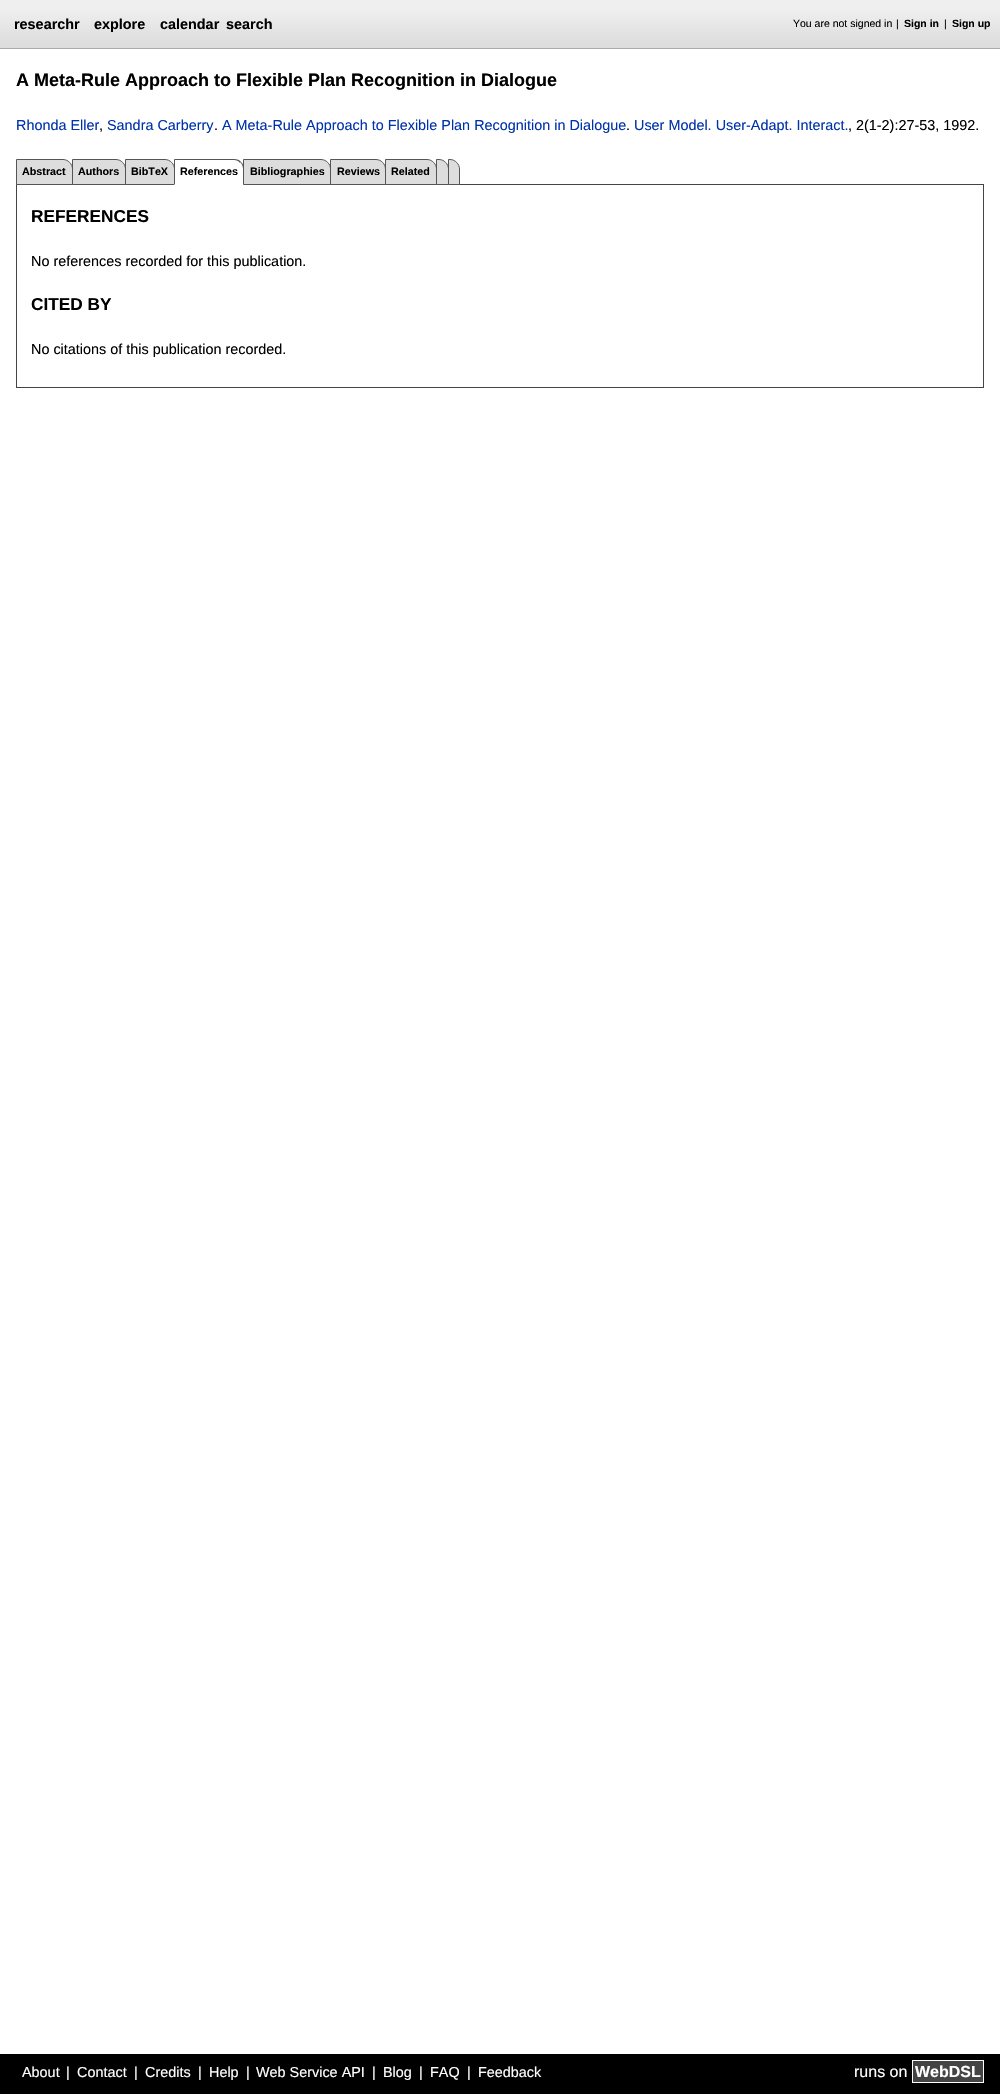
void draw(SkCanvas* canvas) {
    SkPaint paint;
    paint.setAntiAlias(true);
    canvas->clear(0xFFFFFFFF);
    {
        const SkColor colors[] = {0xFFDDDDDD, 0xFFEFEFEF};
        const float stops[] = {0.1f, 0.8f};
        const SkPoint ends[] = {{0, 48}, {0, 0}};
        paint.setShader(SkGradientShader::MakeLinear(ends, colors, stops, 2, SkTileMode::kClamp));
        paint.setAlpha(255);
    }
    canvas->drawRect(SkRect::MakeXYWH(0, 0, 1000, 48), paint);
    paint.setShader(nullptr);
    paint.setColor(0xFFAAAAAA);
    canvas->drawRect(SkRect::MakeXYWH(0, 48, 1000, 1), paint);
    SkFont font1(fontMgr->matchFamilyStyle("Liberation Sans", SkFontStyle::Bold()), 14.4f);
    font1.setSubpixel(true);
    paint.setColor(0xFF000000);
    canvas->drawString("researchr", 14, 29, font1, paint);
    canvas->drawString("explore", 94, 29, font1, paint);
    canvas->drawString("calendar", 160, 29, font1, paint);
    canvas->drawString("search", 226, 29, font1, paint);
    SkFont font2(fontMgr->matchFamilyStyle("Liberation Sans", SkFontStyle::Normal()), 10.5f);
    font2.setSubpixel(true);
    canvas->drawString("You are not signed in", 793, 27, font2, paint);
    canvas->drawString("|", 896, 27, font2, paint);
    SkFont font3(fontMgr->matchFamilyStyle("Liberation Sans", SkFontStyle::Bold()), 10.5f);
    font3.setSubpixel(true);
    canvas->drawString("Sign in", 904, 27, font3, paint);
    canvas->drawString("|", 944, 27, font2, paint);
    canvas->drawString("Sign up", 952, 27, font3, paint);
    SkFont font4(fontMgr->matchFamilyStyle("Liberation Sans", SkFontStyle::Bold()), 18);
    font4.setSubpixel(true);
    canvas->drawString("A Meta-Rule Approach to Flexible Plan Recognition in Dialogue", 16, 86, font4, paint);
    SkFont font5(fontMgr->matchFamilyStyle("Liberation Sans", SkFontStyle::Normal()), 14.4f);
    font5.setSubpixel(true);
    paint.setColor(0xFF0033AA);
    canvas->drawString("Rhonda Eller", 16, 130, font5, paint);
    paint.setColor(0xFF000000);
    canvas->drawString(",", 99, 130, font5, paint);
    paint.setColor(0xFF0033AA);
    canvas->drawString("Sandra Carberry", 107, 130, font5, paint);
    paint.setColor(0xFF000000);
    canvas->drawString(".", 214, 130, font5, paint);
    paint.setColor(0xFF0033AA);
    canvas->drawString("A Meta-Rule Approach to Flexible Plan Recognition in Dialogue", 222, 130, font5, paint);
    paint.setColor(0xFF000000);
    canvas->drawString(".", 626, 130, font5, paint);
    paint.setColor(0xFF0033AA);
    canvas->drawString("User Model. User-Adapt. Interact.", 634, 130, font5, paint);
    paint.setColor(0xFF000000);
    canvas->drawString(", 2(1-2):27-53, 1992.", 848, 130, font5, paint);
    paint.setStyle(SkPaint::kStroke_Style);
    paint.setStrokeWidth(1);
    paint.setColor(0xFF444444);
    canvas->drawRect(SkRect::MakeXYWH(16.5f, 184.5f, 967, 203), paint);
    paint.setStyle(SkPaint::kFill_Style);
    paint.setColor(0xFFDDDDDD);
    canvas->drawPath(SkPathBuilder().moveTo(16.5f, 159.5f).lineTo(63, 159.5f).cubicTo(68, 159.5f, 72.5f, 164, 72.5f, 169).lineTo(72.5f, 184.5f).lineTo(16.5f, 184.5f).close().detach(), paint);
    paint.setStyle(SkPaint::kStroke_Style);
    paint.setColor(0xFF555555);
    canvas->drawPath(SkPathBuilder().moveTo(16.5f, 159.5f).lineTo(63, 159.5f).cubicTo(68, 159.5f, 72.5f, 164, 72.5f, 169).lineTo(72.5f, 184.5f).lineTo(16.5f, 184.5f).close().detach(), paint);
    SkFont font6(fontMgr->matchFamilyStyle("Liberation Sans", SkFontStyle::Bold()), 10.75f);
    font6.setSubpixel(true);
    paint.setStyle(SkPaint::kFill_Style);
    paint.setColor(0xFF000000);
    canvas->drawString("Abstract", 22, 175, font6, paint);
    paint.setColor(0xFFDDDDDD);
    canvas->drawPath(SkPathBuilder().moveTo(72.5f, 159.5f).lineTo(116, 159.5f).cubicTo(121, 159.5f, 125.5f, 164, 125.5f, 169).lineTo(125.5f, 184.5f).lineTo(72.5f, 184.5f).close().detach(), paint);
    paint.setStyle(SkPaint::kStroke_Style);
    paint.setColor(0xFF555555);
    canvas->drawPath(SkPathBuilder().moveTo(72.5f, 159.5f).lineTo(116, 159.5f).cubicTo(121, 159.5f, 125.5f, 164, 125.5f, 169).lineTo(125.5f, 184.5f).lineTo(72.5f, 184.5f).close().detach(), paint);
    paint.setStyle(SkPaint::kFill_Style);
    paint.setColor(0xFF000000);
    canvas->drawString("Authors", 78, 175, font6, paint);
    paint.setColor(0xFFDDDDDD);
    canvas->drawPath(SkPathBuilder().moveTo(125.5f, 159.5f).lineTo(165, 159.5f).cubicTo(170, 159.5f, 174.5f, 164, 174.5f, 169).lineTo(174.5f, 184.5f).lineTo(125.5f, 184.5f).close().detach(), paint);
    paint.setStyle(SkPaint::kStroke_Style);
    paint.setColor(0xFF555555);
    canvas->drawPath(SkPathBuilder().moveTo(125.5f, 159.5f).lineTo(165, 159.5f).cubicTo(170, 159.5f, 174.5f, 164, 174.5f, 169).lineTo(174.5f, 184.5f).lineTo(125.5f, 184.5f).close().detach(), paint);
    paint.setStyle(SkPaint::kFill_Style);
    paint.setColor(0xFF000000);
    canvas->drawString("BibTeX", 131, 175, font6, paint);
    paint.setColor(0xFFFFFFFF);
    canvas->drawPath(SkPathBuilder().moveTo(174, 159).lineTo(234, 159).cubicTo(239.5f, 159, 244, 163.5f, 244, 169).lineTo(244, 185).lineTo(174, 185).close().detach(), paint);
    paint.setColor(0xFF555555);
    canvas->drawPath(SkPathBuilder().moveTo(174, 159).lineTo(175, 160).lineTo(234, 160).cubicTo(236, 160, 239, 161, 240, 163).lineTo(241, 162).cubicTo(240, 160, 237, 159, 234, 159).close().detach(), paint);
    canvas->drawPath(SkPathBuilder().moveTo(244, 185).lineTo(244, 169).cubicTo(244, 166, 243, 163.5f, 241, 162).lineTo(240.5f, 162.5f).cubicTo(242, 164, 243, 166.5f, 243, 169).lineTo(243, 184).close().detach(), paint);
    paint.setColor(0xFFFFFFFF);
    canvas->drawPath(SkPathBuilder().moveTo(244, 185).lineTo(243, 184).lineTo(175, 184).lineTo(174, 185).close().detach(), paint);
    paint.setColor(0xFF555555);
    canvas->drawPath(SkPathBuilder().moveTo(174, 159).lineTo(174, 185).lineTo(175, 184).lineTo(175, 160).close().detach(), paint);
    paint.setColor(0xFF000000);
    canvas->drawString("References", 180, 175, font6, paint);
    paint.setColor(0xFFDDDDDD);
    canvas->drawPath(SkPathBuilder().moveTo(243.5f, 159.5f).lineTo(321, 159.5f).cubicTo(326, 159.5f, 330.5f, 164, 330.5f, 169).lineTo(330.5f, 184.5f).lineTo(243.5f, 184.5f).close().detach(), paint);
    paint.setStyle(SkPaint::kStroke_Style);
    paint.setColor(0xFF555555);
    canvas->drawPath(SkPathBuilder().moveTo(243.5f, 159.5f).lineTo(321, 159.5f).cubicTo(326, 159.5f, 330.5f, 164, 330.5f, 169).lineTo(330.5f, 184.5f).lineTo(243.5f, 184.5f).close().detach(), paint);
    paint.setStyle(SkPaint::kFill_Style);
    paint.setColor(0xFF000000);
    canvas->drawString("Bibliographies", 250, 175, font6, paint);
    paint.setColor(0xFFDDDDDD);
    canvas->drawPath(SkPathBuilder().moveTo(330.5f, 159.5f).lineTo(376, 159.5f).cubicTo(381, 159.5f, 385.5f, 164, 385.5f, 169).lineTo(385.5f, 184.5f).lineTo(330.5f, 184.5f).close().detach(), paint);
    paint.setStyle(SkPaint::kStroke_Style);
    paint.setColor(0xFF555555);
    canvas->drawPath(SkPathBuilder().moveTo(330.5f, 159.5f).lineTo(376, 159.5f).cubicTo(381, 159.5f, 385.5f, 164, 385.5f, 169).lineTo(385.5f, 184.5f).lineTo(330.5f, 184.5f).close().detach(), paint);
    paint.setStyle(SkPaint::kFill_Style);
    paint.setColor(0xFF000000);
    canvas->drawString("Reviews", 337, 175, font6, paint);
    paint.setColor(0xFFDDDDDD);
    canvas->drawPath(SkPathBuilder().moveTo(385.5f, 159.5f).lineTo(427, 159.5f).cubicTo(432, 159.5f, 436.5f, 164, 436.5f, 169).lineTo(436.5f, 184.5f).lineTo(385.5f, 184.5f).close().detach(), paint);
    paint.setStyle(SkPaint::kStroke_Style);
    paint.setColor(0xFF555555);
    canvas->drawPath(SkPathBuilder().moveTo(385.5f, 159.5f).lineTo(427, 159.5f).cubicTo(432, 159.5f, 436.5f, 164, 436.5f, 169).lineTo(436.5f, 184.5f).lineTo(385.5f, 184.5f).close().detach(), paint);
    paint.setStyle(SkPaint::kFill_Style);
    paint.setColor(0xFF000000);
    canvas->drawString("Related", 391, 175, font6, paint);
    paint.setColor(0xFFDDDDDD);
    canvas->drawPath(SkPathBuilder().moveTo(436.5f, 159.5f).lineTo(439, 159.5f).cubicTo(444, 159.5f, 448.5f, 164, 448.5f, 169).lineTo(448.5f, 184.5f).lineTo(436.5f, 184.5f).close().detach(), paint);
    paint.setStyle(SkPaint::kStroke_Style);
    paint.setColor(0xFF555555);
    canvas->drawPath(SkPathBuilder().moveTo(436.5f, 159.5f).lineTo(439, 159.5f).cubicTo(444, 159.5f, 448.5f, 164, 448.5f, 169).lineTo(448.5f, 184.5f).lineTo(436.5f, 184.5f).close().detach(), paint);
    paint.setStyle(SkPaint::kFill_Style);
    paint.setColor(0xFFDDDDDD);
    canvas->drawPath(SkPathBuilder().moveTo(448.5f, 159.5f).lineTo(450, 159.5f).cubicTo(455, 159.5f, 459.5f, 164, 459.5f, 169).lineTo(459.5f, 184.5f).lineTo(448.5f, 184.5f).close().detach(), paint);
    paint.setStyle(SkPaint::kStroke_Style);
    paint.setColor(0xFF555555);
    canvas->drawPath(SkPathBuilder().moveTo(448.5f, 159.5f).lineTo(450, 159.5f).cubicTo(455, 159.5f, 459.5f, 164, 459.5f, 169).lineTo(459.5f, 184.5f).lineTo(448.5f, 184.5f).close().detach(), paint);
    SkFont font7(fontMgr->matchFamilyStyle("Liberation Sans", SkFontStyle::Bold()), 17.25f);
    font7.setSubpixel(true);
    paint.setStyle(SkPaint::kFill_Style);
    paint.setColor(0xFF000000);
    canvas->drawString("REFERENCES", 31, 222, font7, paint);
    canvas->drawString("No references recorded for this publication.", 31, 266, font5, paint);
    canvas->drawString("CITED BY", 31, 310, font7, paint);
    canvas->drawString("No citations of this publication recorded.", 31, 354, font5, paint);
    canvas->drawRect(SkRect::MakeXYWH(0, 2054, 1000, 40), paint);
    paint.setColor(0xFFFFFFFF);
    canvas->drawString("About", 22, 2077, font5, paint);
    canvas->drawString("|", 66, 2077, font5, paint);
    canvas->drawString("Contact", 77, 2077, font5, paint);
    canvas->drawString("|", 134, 2077, font5, paint);
    canvas->drawString("Credits", 145, 2077, font5, paint);
    canvas->drawString("|", 198, 2077, font5, paint);
    canvas->drawString("Help", 209, 2077, font5, paint);
    canvas->drawString("|", 246, 2077, font5, paint);
    canvas->drawString("Web Service API", 256, 2077, font5, paint);
    canvas->drawString("|", 372, 2077, font5, paint);
    canvas->drawString("Blog", 383, 2077, font5, paint);
    canvas->drawString("|", 419, 2077, font5, paint);
    canvas->drawString("FAQ", 430, 2077, font5, paint);
    canvas->drawString("|", 467, 2077, font5, paint);
    canvas->drawString("Feedback", 478, 2077, font5, paint);
    SkFont font8(fontMgr->matchFamilyStyle("Liberation Sans", SkFontStyle::Normal()), 16);
    font8.setSubpixel(true);
    canvas->drawString("runs on", 854, 2077, font8, paint);
    paint.setColor(0xFF444444);
    canvas->drawRect(SkRect::MakeXYWH(913, 2061, 70, 21), paint);
    SkFont font9(fontMgr->matchFamilyStyle("Liberation Sans", SkFontStyle::Bold()), 16);
    font9.setSubpixel(true);
    paint.setColor(0xFFFFFFFF);
    canvas->drawString("WebDSL", 915, 2077, font9, paint);
    canvas->drawRect(SkRect::MakeXYWH(912, 2060, 72, 1), paint);
    canvas->drawRect(SkRect::MakeXYWH(912, 2082, 37, 1), paint);
    canvas->drawRect(SkRect::MakeXYWH(912, 2060, 1, 23), paint);
    canvas->drawRect(SkRect::MakeXYWH(983, 2060, 1, 23), paint);
    canvas->drawRect(SkRect::MakeXYWH(949, 2082, 35, 1), paint);
}
